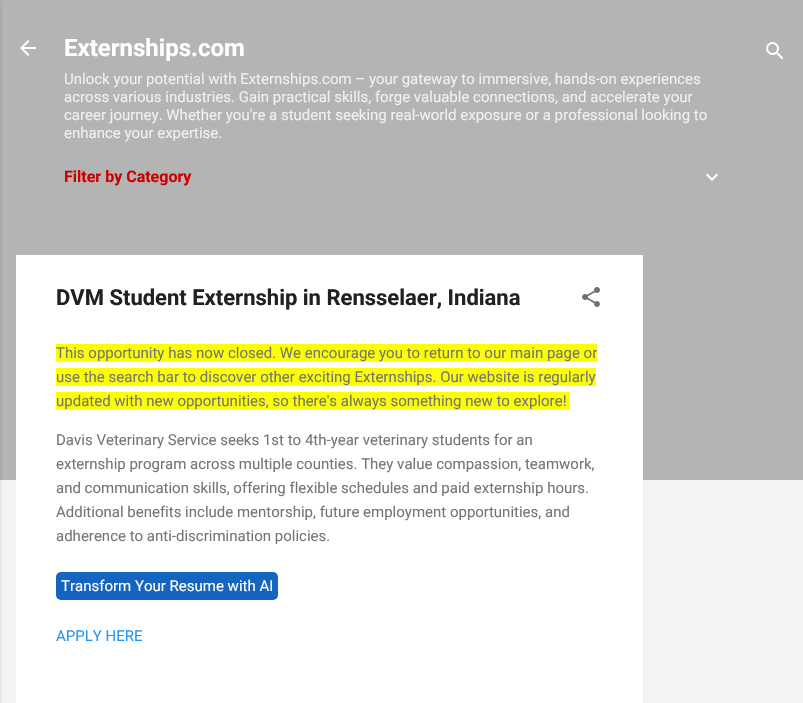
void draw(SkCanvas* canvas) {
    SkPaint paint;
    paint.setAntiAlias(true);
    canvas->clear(0xFFF3F3F3);
    paint.setColor(0xFFB4B4B4);
    canvas->drawRect(SkRect::MakeXYWH(0, 0, 803, 480), paint);
    paint.setColor(0x1A000000);
    paint.setMaskFilter(SkMaskFilter::MakeBlur(kNormal_SkBlurStyle, 1.5f));
    canvas->drawRect(SkRect::MakeXYWH(-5, 1, 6, 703), paint);
    paint.setMaskFilter(nullptr);
    canvas->drawImageRect(SkImages::DeferredFromEncodedData(SkData::MakeFromFileName("img1.png")), SkRect::MakeXYWH(20, 40, 16, 16), SkSamplingOptions());
    SkFont font1(fontMgr->matchFamilyStyle("Roboto", SkFontStyle::Bold()), 24);
    font1.setSubpixel(true);
    paint.setColor(0xFFFFFFFF);
    canvas->drawString("Externships.com", 64, 56, font1, paint);
    SkFont font2(fontMgr->matchFamilyStyle("Roboto", SkFontStyle::Normal()), 15);
    font2.setSubpixel(true);
    paint.setColor(0xFFF0F0F0);
    canvas->drawString("Unlock your potential with Externships.com – your gateway to immersive, hands-on experiences", 64, 84, font2, paint);
    canvas->drawString("across various industries. Gain practical skills, forge valuable connections, and accelerate your", 64, 102, font2, paint);
    canvas->drawString("career journey. Whether you're a student seeking real-world exposure or a professional looking to", 64, 120, font2, paint);
    canvas->drawString("enhance your expertise.", 64, 138, font2, paint);
    SkFont font3(fontMgr->matchFamilyStyle("Roboto", SkFontStyle::Bold()), 16);
    font3.setSubpixel(true);
    paint.setColor(0xFFCC0000);
    canvas->drawString("Filter by Category", 64, 182, font3, paint);
    canvas->drawImageRect(SkImages::DeferredFromEncodedData(SkData::MakeFromFileName("img2.png")), SkRect::MakeXYWH(706, 173, 12, 8), SkSamplingOptions());
    canvas->drawImageRect(SkImages::DeferredFromEncodedData(SkData::MakeFromFileName("img3.png")), SkRect::MakeXYWH(766, 42, 18, 18), SkSamplingOptions());
    paint.setColor(0xFFFFFFFF);
    canvas->drawRect(SkRect::MakeXYWH(16, 255, 627, 448), paint);
    SkFont font4(fontMgr->matchFamilyStyle("Roboto", SkFontStyle::Bold()), 22);
    font4.setSubpixel(true);
    paint.setColor(0xFF212121);
    canvas->drawString("DVM Student Externship in Rensselaer, Indiana", 56, 305, font4, paint);
    canvas->drawImageRect(SkImages::DeferredFromEncodedData(SkData::MakeFromFileName("img4.png")), SkRect::MakeXYWH(582, 287, 18, 20), SkSamplingOptions());
    paint.setColor(0xFFFCFF01);
    canvas->drawRect(SkRect::MakeXYWH(56, 344, 541, 18), paint);
    paint.setColor(0xFF757575);
    canvas->drawString("This opportunity has now closed. We encourage you to return to our main page or", 56, 358, font2, paint);
    paint.setColor(0xFFFCFF01);
    canvas->drawRect(SkRect::MakeXYWH(56, 368, 540, 18), paint);
    paint.setColor(0xFF757575);
    canvas->drawString("use the search bar to discover other exciting Externships. Our website is regularly", 56, 382, font2, paint);
    paint.setColor(0xFFFCFF01);
    canvas->drawRect(SkRect::MakeXYWH(56, 392, 514, 18), paint);
    paint.setColor(0xFF757575);
    canvas->drawString("updated with new opportunities, so there's always something new to explore!", 56, 406, font2, paint);
    canvas->drawString("Davis Veterinary Service seeks 1st to 4th-year veterinary students for an", 56, 445, font2, paint);
    canvas->drawString("externship program across multiple counties. They value compassion, teamwork,", 56, 469, font2, paint);
    canvas->drawString("and communication skills, offering flexible schedules and paid externship hours.", 56, 493, font2, paint);
    canvas->drawString("Additional benefits include mentorship, future employment opportunities, and", 56, 517, font2, paint);
    canvas->drawString("adherence to anti-discrimination policies.", 56, 541, font2, paint);
    paint.setColor(0xFF1565C0);
    canvas->drawRoundRect(SkRect::MakeXYWH(56, 572, 222, 28), 5, 5, paint);
    paint.setColor(0xFFFFFFFF);
    canvas->drawString("Transform Your Resume with AI", 61, 591, font2, paint);
    paint.setColor(0xFF2196F3);
    canvas->drawString("APPLY HERE", 56, 641, font2, paint);
}
